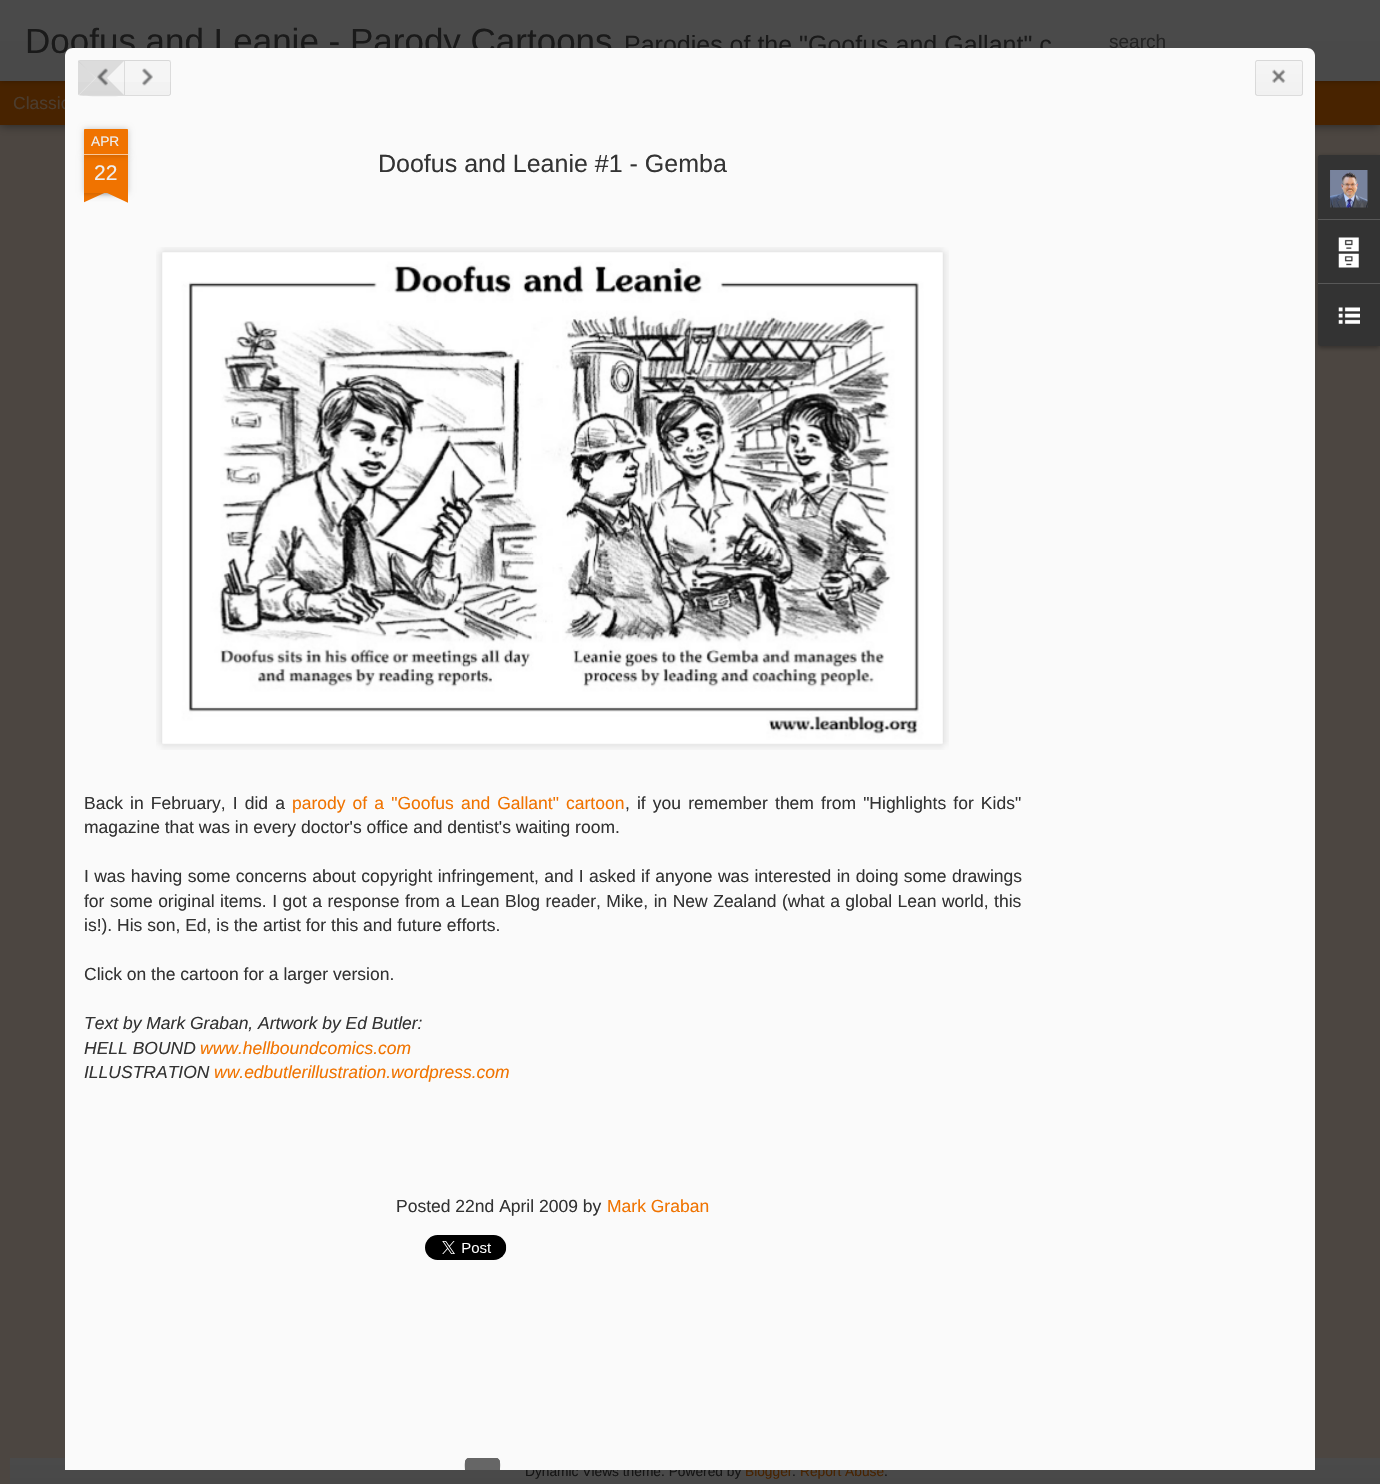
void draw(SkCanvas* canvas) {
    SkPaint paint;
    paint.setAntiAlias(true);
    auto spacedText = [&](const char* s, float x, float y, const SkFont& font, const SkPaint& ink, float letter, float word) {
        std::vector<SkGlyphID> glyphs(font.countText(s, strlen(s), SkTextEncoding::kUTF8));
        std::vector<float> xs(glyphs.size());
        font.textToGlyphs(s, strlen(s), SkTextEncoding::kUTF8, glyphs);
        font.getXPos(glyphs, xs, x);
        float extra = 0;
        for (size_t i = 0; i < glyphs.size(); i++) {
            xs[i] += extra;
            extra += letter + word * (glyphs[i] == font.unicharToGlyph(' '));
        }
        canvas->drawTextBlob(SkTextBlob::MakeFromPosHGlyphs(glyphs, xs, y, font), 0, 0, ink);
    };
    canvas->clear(0xFF4C4641);
    paint.setColor(0x80000000);
    paint.setMaskFilter(SkMaskFilter::MakeBlur(kNormal_SkBlurStyle, 5));
    canvas->drawRect(SkRect::MakeXYWH(0, 81, 1380, 44), paint);
    paint.setMaskFilter(nullptr);
    paint.setColor(0xFF482300);
    canvas->drawRect(SkRect::MakeXYWH(0, 81, 1380, 44), paint);
    paint.setColor(0x4D000000);
    paint.setMaskFilter(SkMaskFilter::MakeBlur(kNormal_SkBlurStyle, 3));
    canvas->drawRect(SkRect::MakeXYWH(0, 0, 1380, 81), paint);
    paint.setMaskFilter(nullptr);
    {
        const SkColor colors[] = {0xFF4A4A4A, 0xFF494949};
        const float stops[] = {0, 1};
        const SkPoint ends[] = {{0, 0}, {0, 81}};
        paint.setShader(SkGradientShader::MakeLinear(ends, colors, stops, 2, SkTileMode::kClamp));
        paint.setAlpha(255);
    }
    canvas->drawRect(SkRect::MakeXYWH(0, 0, 1380, 81), paint);
    SkFont font1(fontMgr->matchFamilyStyle("Liberation Sans", SkFontStyle::Normal()), 35);
    font1.setSubpixel(true);
    paint.setShader(nullptr);
    paint.setColor(0xFF1A1A1A);
    canvas->drawString("Doofus and Leanie - Parody Cartoons", 25, 53, font1, paint);
    SkFont font2(fontMgr->matchFamilyStyle("Liberation Sans", SkFontStyle::Normal()), 25);
    font2.setSubpixel(true);
    canvas->drawString("Parodies of the \"Goofus and Gallant\" c", 624, 53, font2, paint);
    SkFont font3(fontMgr->matchFamilyStyle("Liberation Sans", SkFontStyle::Normal()), 19);
    font3.setSubpixel(true);
    paint.setColor(0xFF232323);
    canvas->drawString("search", 1109, 48, font3, paint);
    SkFont font4(fontMgr->matchFamilyStyle("Liberation Sans", SkFontStyle::Normal()), 17.5f);
    font4.setSubpixel(true);
    paint.setColor(0xFF4B3C2E);
    canvas->drawString("Classic", 13, 109, font4, paint);
    paint.setColor(0x4D000000);
    paint.setMaskFilter(SkMaskFilter::MakeBlur(kNormal_SkBlurStyle, 2));
    canvas->drawRoundRect(SkRect::MakeXYWH(1318, 156, 62, 192), 2.5f, 2.5f, paint);
    paint.setMaskFilter(nullptr);
    {
        const SkColor colors[] = {0xFF4A4A4A, 0xFF484848};
        const float stops[] = {0, 1};
        const SkPoint ends[] = {{706, 1458}, {706, 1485}};
        paint.setShader(SkGradientShader::MakeLinear(ends, colors, stops, 2, SkTileMode::kClamp));
        paint.setAlpha(255);
    }
    canvas->drawRect(SkRect::MakeXYWH(10, 1458, 1370, 26), paint);
    SkFont font5(fontMgr->matchFamilyStyle("Liberation Sans", SkFontStyle::Normal()), 13.75f);
    font5.setSubpixel(true);
    paint.setShader(nullptr);
    paint.setColor(0xFF141414);
    canvas->drawString("Dynamic Views theme. Powered by", 525, 1476, font5, paint);
    paint.setColor(0xFF482300);
    canvas->drawString("Blogger", 745, 1476, font5, paint);
    canvas->drawString("Report Abuse", 800, 1476, font5, paint);
    paint.setColor(0xFFFAFAFA);
    canvas->drawPath(SkPathBuilder().moveTo(73, 48).lineTo(1307, 48).cubicTo(1311.5f, 48, 1315, 51.5f, 1315, 56).lineTo(1315, 1470).lineTo(65, 1470).lineTo(65, 56).cubicTo(65, 51.5f, 68.5f, 48, 73, 48).close().detach(), paint);
    paint.setColor(0xFFF5F5F5);
    canvas->drawPath(SkPathBuilder().moveTo(80.5f, 60).lineTo(125, 60).lineTo(125, 96).lineTo(80.5f, 96).cubicTo(79, 96, 78, 95, 78, 93.5f).lineTo(78, 62.5f).cubicTo(78, 61, 79, 60, 80.5f, 60).close().detach(), paint);
    {
        const SkColor colors[] = {0xFFF5F5F5, 0xFFF1F1F1};
        const float stops[] = {0, 1};
        const SkPoint ends[] = {{101, 28}, {101, 61}};
        paint.setShader(SkGradientShader::MakeLinear(ends, colors, stops, 2, SkTileMode::kClamp));
        paint.setAlpha(255);
    }
    canvas->drawRect(SkRect::MakeXYWH(78, 60, 47, 1), paint);
    {
        const SkColor colors[] = {0xFFF5F5F5, 0xFFF1F1F1};
        const float stops[] = {0, 1};
        const SkPoint ends[] = {{101, 61}, {101, 95}};
        paint.setShader(SkGradientShader::MakeLinear(ends, colors, stops, 2, SkTileMode::kClamp));
        paint.setAlpha(255);
    }
    canvas->drawRect(SkRect::MakeXYWH(78, 82, 46, 13), paint);
    paint.setShader(nullptr);
    paint.setColor(0x1A000000);
    canvas->drawPath(SkPathBuilder().moveTo(80, 60).lineTo(125, 60).lineTo(107, 78).lineTo(96, 78).lineTo(78, 61).close().moveTo(125, 96).lineTo(107, 78).lineTo(96, 78).lineTo(79, 95).cubicTo(80, 97, 119, 96, 125, 96).close().detach(), paint);
    canvas->drawPath(SkPathBuilder().moveTo(78.5f, 61).lineTo(78, 62).lineTo(78, 94).lineTo(78.5f, 95).lineTo(95.5f, 78).close().detach(), paint);
    canvas->drawImageRect(SkImages::DeferredFromEncodedData(SkData::MakeFromFileName("img1.png")), SkRect::MakeXYWH(97, 68, 11, 18), SkSamplingOptions());
    paint.setColor(0xFFF5F5F5);
    canvas->drawPath(SkPathBuilder().moveTo(124, 60).lineTo(168.5f, 60).cubicTo(170, 60, 171, 61, 171, 62.5f).lineTo(171, 93.5f).cubicTo(171, 95, 170, 96, 168.5f, 96).lineTo(124, 96).close().detach(), paint);
    {
        const SkColor colors[] = {0xFFF5F5F5, 0xFFF1F1F1};
        const float stops[] = {0, 1};
        const SkPoint ends[] = {{148, 28}, {148, 61}};
        paint.setShader(SkGradientShader::MakeLinear(ends, colors, stops, 2, SkTileMode::kClamp));
        paint.setAlpha(255);
    }
    canvas->drawRect(SkRect::MakeXYWH(124, 60, 47, 1), paint);
    {
        const SkColor colors[] = {0xFFF5F5F5, 0xFFF1F1F1};
        const float stops[] = {0, 1};
        const SkPoint ends[] = {{148, 61}, {148, 95}};
        paint.setShader(SkGradientShader::MakeLinear(ends, colors, stops, 2, SkTileMode::kClamp));
        paint.setAlpha(255);
    }
    canvas->drawRect(SkRect::MakeXYWH(124, 82, 47, 13), paint);
    paint.setStyle(SkPaint::kStroke_Style);
    paint.setStrokeWidth(1);
    paint.setShader(nullptr);
    paint.setColor(0x1A000000);
    canvas->drawPath(SkPathBuilder().moveTo(124.5f, 60.5f).lineTo(168.5f, 60.5f).cubicTo(169.5f, 60.5f, 170.5f, 61.5f, 170.5f, 62.5f).lineTo(170.5f, 93.5f).cubicTo(170.5f, 94.5f, 169.5f, 95.5f, 168.5f, 95.5f).lineTo(124.5f, 95.5f).close().detach(), paint);
    canvas->drawImageRect(SkImages::DeferredFromEncodedData(SkData::MakeFromFileName("img2.png")), SkRect::MakeXYWH(142, 68, 11, 18), SkSamplingOptions());
    paint.setStyle(SkPaint::kFill_Style);
    paint.setColor(0xFFF5F5F5);
    canvas->drawRoundRect(SkRect::MakeXYWH(1255, 60, 48, 36), 2.5f, 2.5f, paint);
    canvas->save();
    canvas->clipPath(SkPathBuilder().moveTo(1257.5f, 60).lineTo(1300.5f, 60).cubicTo(1302, 60, 1303, 61, 1303, 62.5f).lineTo(1303, 93.5f).cubicTo(1303, 95, 1302, 96, 1300.5f, 96).lineTo(1257.5f, 96).cubicTo(1256, 96, 1255, 95, 1255, 93.5f).lineTo(1255, 62.5f).cubicTo(1255, 61, 1256, 60, 1257.5f, 60).close().detach(), true);
    {
        const SkColor colors[] = {0xFFF5F5F5, 0xFFF1F1F1};
        const float stops[] = {0, 1};
        const SkPoint ends[] = {{1279, 28}, {1279, 61}};
        paint.setShader(SkGradientShader::MakeLinear(ends, colors, stops, 2, SkTileMode::kClamp));
        paint.setAlpha(255);
    }
    canvas->drawRect(SkRect::MakeXYWH(1255, 60, 48, 1), paint);
    {
        const SkColor colors[] = {0xFFF5F5F5, 0xFFF1F1F1};
        const float stops[] = {0, 1};
        const SkPoint ends[] = {{1279, 61}, {1279, 95}};
        paint.setShader(SkGradientShader::MakeLinear(ends, colors, stops, 2, SkTileMode::kClamp));
        paint.setAlpha(255);
    }
    canvas->drawRect(SkRect::MakeXYWH(1255, 61, 48, 34), paint);
    canvas->restore();
    paint.setStyle(SkPaint::kStroke_Style);
    paint.setShader(nullptr);
    paint.setColor(0x1A000000);
    canvas->drawRoundRect(SkRect::MakeXYWH(1255.5f, 60.5f, 47, 35), 2, 2, paint);
    canvas->drawImageRect(SkImages::DeferredFromEncodedData(SkData::MakeFromFileName("img3.png")), SkRect::MakeXYWH(1272, 69, 14, 14), SkSamplingOptions());
    paint.setStyle(SkPaint::kFill_Style);
    paint.setColor(0x33000000);
    paint.setMaskFilter(SkMaskFilter::MakeBlur(kNormal_SkBlurStyle, 3));
    canvas->drawRect(SkRect::MakeXYWH(84, 155, 44, 38), paint);
    paint.setMaskFilter(nullptr);
    paint.setColor(0xFFF07300);
    canvas->drawRect(SkRect::MakeXYWH(84, 155, 44, 38), paint);
    paint.setColor(0x33000000);
    paint.setMaskFilter(SkMaskFilter::MakeBlur(kNormal_SkBlurStyle, 3));
    canvas->drawRoundRect(SkRect::MakeXYWH(84, 129, 44, 26), 1, 1, paint);
    paint.setMaskFilter(nullptr);
    paint.setColor(0xFFF07300);
    canvas->drawPath(SkPathBuilder().moveTo(85, 129).lineTo(127, 129).cubicTo(127.5f, 129, 128, 129.5f, 128, 130).lineTo(128, 155).lineTo(84, 155).lineTo(84, 130).cubicTo(84, 129.5f, 84.5f, 129, 85, 129).close().detach(), paint);
    paint.setColor(0xFFF9C799);
    canvas->drawRect(SkRect::MakeXYWH(84, 154, 44, 1), paint);
    paint.setColor(0xFFEEEEEE);
    canvas->drawString("APR", 91, 146, font5, paint);
    SkFont font6(fontMgr->matchFamilyStyle("Liberation Sans", SkFontStyle::Normal()), 21);
    font6.setSubpixel(true);
    canvas->drawString("22", 94, 180, font6, paint);
    canvas->save();
    canvas->clipRect(SkRect::MakeXYWH(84, 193, 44, 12));
    paint.setColor(0x33000000);
    paint.setMaskFilter(SkMaskFilter::MakeBlur(kNormal_SkBlurStyle, 3));
    canvas->drawRect(SkRect::MakeXYWH(73, 180, 62, 13), paint);
    paint.setMaskFilter(nullptr);
    canvas->restore();
    canvas->save();
    canvas->clipRect(SkRect::MakeXYWH(84, 193, 44, 12));
    paint.setColor(0xFFF07300);
    canvas->drawPath(SkPathBuilder().moveTo(73, 194).lineTo(129, 167).lineTo(135, 179).lineTo(78, 205).close().detach(), paint);
    canvas->restore();
    canvas->save();
    canvas->clipRect(SkRect::MakeXYWH(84, 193, 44, 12));
    paint.setColor(0x33000000);
    paint.setMaskFilter(SkMaskFilter::MakeBlur(kNormal_SkBlurStyle, 3));
    canvas->drawRect(SkRect::MakeXYWH(76, 180, 63, 13), paint);
    paint.setMaskFilter(nullptr);
    canvas->restore();
    canvas->save();
    canvas->clipRect(SkRect::MakeXYWH(84, 193, 44, 12));
    paint.setColor(0xFFF07300);
    canvas->drawPath(SkPathBuilder().moveTo(82, 167).lineTo(138, 194).lineTo(133, 205).lineTo(77, 179).close().detach(), paint);
    canvas->restore();
    paint.setColor(0xFF333333);
    canvas->drawString("Doofus and Leanie #1 - Gemba", 378, 172, font2, paint);
    canvas->drawImageRect(SkImages::DeferredFromEncodedData(SkData::MakeFromFileName("img4.png")), SkRect::MakeXYWH(156, 247, 793, 503), SkSamplingOptions());
    canvas->drawImageRect(SkImages::DeferredFromEncodedData(SkData::MakeFromFileName("img5.png")), SkRect::MakeXYWH(162, 252, 781, 492), SkSamplingOptions());
    spacedText("Back in February, I did a", 84, 809, font4, paint, 0, 2.25f);
    paint.setColor(0xFFF07300);
    spacedText("parody of a \"Goofus and Gallant\" cartoon", 292, 809, font4, paint, 0, 2.25f);
    paint.setColor(0xFF333333);
    spacedText(", if you remember them from \"Highlights for Kids\"", 625, 809, font4, paint, 0, 2.25f);
    canvas->drawString("magazine that was in every doctor's office and dentist's waiting room.", 84, 833, font4, paint);
    spacedText("I was having some concerns about copyright infringement, and I asked if anyone was interested in doing some drawings", 84, 882, font4, paint, 0, 0.5f);
    spacedText("for some original items. I got a response from a Lean Blog reader, Mike, in New Zealand (what a global Lean world, this", 84, 907, font4, paint, 0, 0.6f);
    canvas->drawString("is!). His son, Ed, is the artist for this and future efforts.", 84, 931, font4, paint);
    canvas->drawString("Click on the cartoon for a larger version.", 84, 980, font4, paint);
    SkFont font7(fontMgr->matchFamilyStyle("Liberation Sans", SkFontStyle::Italic()), 17.5f);
    font7.setSubpixel(true);
    canvas->drawString("Text by Mark Graban, Artwork by Ed Butler:", 84, 1029, font7, paint);
    canvas->drawString("HELL BOUND", 84, 1054, font7, paint);
    paint.setColor(0xFFF07300);
    canvas->drawString("www.hellboundcomics.com", 200, 1054, font7, paint);
    paint.setColor(0xFF333333);
    canvas->drawString("ILLUSTRATION", 84, 1078, font7, paint);
    paint.setColor(0xFFF07300);
    canvas->drawString("ww.edbutlerillustration.wordpress.com", 214, 1078, font7, paint);
    paint.setColor(0xFF333333);
    canvas->drawString("Posted 22nd April 2009 by", 396, 1212, font4, paint);
    paint.setColor(0xFFF07300);
    canvas->drawString("Mark Graban", 607, 1212, font4, paint);
    canvas->drawImageRect(SkImages::DeferredFromEncodedData(SkData::MakeFromFileName("img6.png")), SkRect::MakeXYWH(425, 1235, 82, 25), SkSamplingOptions());
    paint.setColor(0xFF666666);
    canvas->drawPath(SkPathBuilder().moveTo(469, 1458).lineTo(496, 1458).cubicTo(498, 1458, 500, 1460, 500, 1462).lineTo(500, 1470).lineTo(465, 1470).lineTo(465, 1462).cubicTo(465, 1460, 467, 1458, 469, 1458).close().detach(), paint);
    canvas->drawPath(SkPathBuilder().moveTo(469, 1458).cubicTo(463.5f, 1458, 465, 1466.5f, 465, 1470).lineTo(466, 1470).lineTo(466, 1462).cubicTo(466, 1460.5f, 467.5f, 1459, 469, 1459).lineTo(496, 1459).cubicTo(497.5f, 1459, 499, 1460.5f, 499, 1462).lineTo(499, 1470).lineTo(500, 1470).cubicTo(500, 1466.5f, 501.5f, 1458, 496, 1458).close().detach(), paint);
    paint.setColor(0xFF333333);
    canvas->drawPath(SkPathBuilder().moveTo(1320.5f, 155).lineTo(1380, 155).lineTo(1380, 346).lineTo(1320.5f, 346).cubicTo(1319, 346, 1318, 345, 1318, 343.5f).lineTo(1318, 157.5f).cubicTo(1318, 156, 1319, 155, 1320.5f, 155).close().detach(), paint);
    canvas->drawPath(SkPathBuilder().moveTo(1320.5f, 155).lineTo(1380, 155).lineTo(1380, 219).lineTo(1318, 219).lineTo(1318, 157.5f).cubicTo(1318, 156, 1319, 155, 1320.5f, 155).close().detach(), paint);
    canvas->drawImageRect(SkImages::DeferredFromEncodedData(SkData::MakeFromFileName("img7.png")), SkRect::MakeXYWH(1330, 170, 38, 38), SkSamplingOptions());
    paint.setColor(0xFF585858);
    canvas->drawRect(SkRect::MakeXYWH(1318, 219, 62, 1), paint);
    canvas->drawImageRect(SkImages::DeferredFromEncodedData(SkData::MakeFromFileName("img8.png")), SkRect::MakeXYWH(1338, 237, 21, 31), SkSamplingOptions());
    canvas->drawRect(SkRect::MakeXYWH(1318, 283, 62, 1), paint);
    canvas->drawImageRect(SkImages::DeferredFromEncodedData(SkData::MakeFromFileName("img9.png")), SkRect::MakeXYWH(1338, 307, 22, 17), SkSamplingOptions());
    paint.setColor(0xFF141414);
    canvas->drawString(".", 792, 1476, font5, paint);
    canvas->drawString(".", 884, 1476, font5, paint);
}
